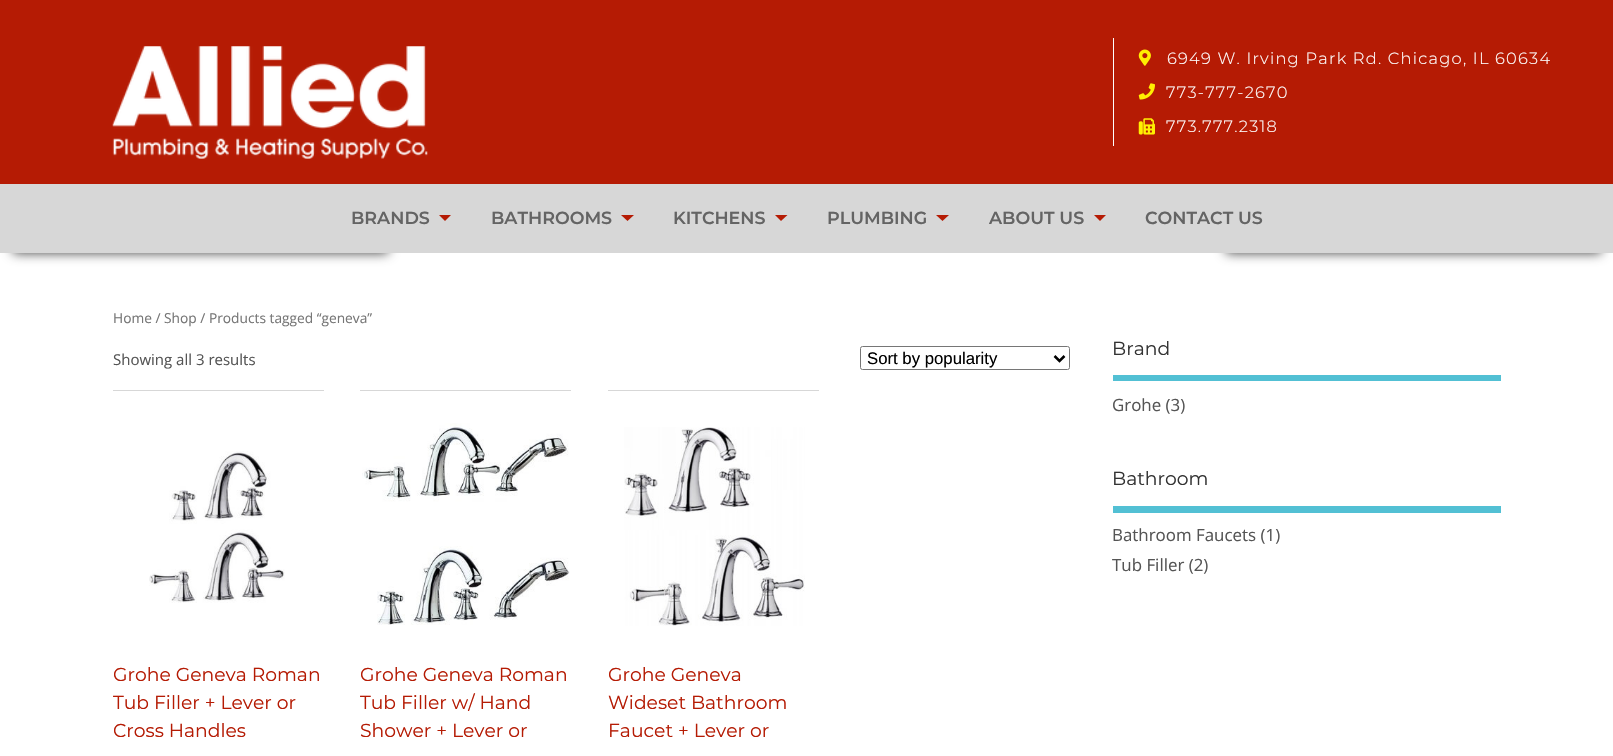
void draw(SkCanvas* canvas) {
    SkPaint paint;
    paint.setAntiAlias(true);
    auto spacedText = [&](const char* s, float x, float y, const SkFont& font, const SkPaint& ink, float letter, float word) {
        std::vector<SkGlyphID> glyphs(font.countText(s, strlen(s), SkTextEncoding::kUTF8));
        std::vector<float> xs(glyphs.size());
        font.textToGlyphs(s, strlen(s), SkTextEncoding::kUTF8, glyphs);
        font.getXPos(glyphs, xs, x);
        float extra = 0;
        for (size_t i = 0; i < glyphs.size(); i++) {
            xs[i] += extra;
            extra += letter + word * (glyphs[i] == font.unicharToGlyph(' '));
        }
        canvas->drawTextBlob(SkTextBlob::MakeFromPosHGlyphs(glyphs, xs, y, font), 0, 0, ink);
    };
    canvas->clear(0xFFFFFFFF);
    paint.setColor(0xFFB51B04);
    canvas->drawRect(SkRect::MakeXYWH(0, 0, 1613, 184), paint);
    canvas->drawImageRect(SkImages::DeferredFromEncodedData(SkData::MakeFromFileName("img1.png")), SkRect::MakeXYWH(112, 46, 316, 113), SkSamplingOptions());
    paint.setColor(0xFFFFFFFF);
    canvas->drawRect(SkRect::MakeXYWH(1113, 38, 1, 108), paint);
    canvas->drawImageRect(SkImages::DeferredFromEncodedData(SkData::MakeFromFileName("img2.png")), SkRect::MakeXYWH(1138, 49, 13, 17), SkSamplingOptions());
    SkFont font1(fontMgr->matchFamilyStyle("Montserrat", SkFontStyle(300, SkFontStyle::kNormal_Width, SkFontStyle::kUpright_Slant)), 16.25f);
    font1.setSubpixel(true);
    spacedText("6949 W. Irving Park Rd. Chicago, IL 60634", 1167, 64, font1, paint, 1.25f, 0);
    canvas->drawImageRect(SkImages::DeferredFromEncodedData(SkData::MakeFromFileName("img3.png")), SkRect::MakeXYWH(1138, 83, 17, 17), SkSamplingOptions());
    spacedText("773-777-2670", 1166, 98, font1, paint, 1.25f, 0);
    canvas->drawImageRect(SkImages::DeferredFromEncodedData(SkData::MakeFromFileName("img4.png")), SkRect::MakeXYWH(1138, 118, 17, 17), SkSamplingOptions());
    spacedText("773.777.2318", 1166, 132, font1, paint, 1.25f, 0);
    paint.setColor(0xBF000000);
    paint.setMaskFilter(SkMaskFilter::MakeBlur(kNormal_SkBlurStyle, 6));
    canvas->drawRect(SkRect::MakeXYWH(13, 239, 375, 14), paint);
    paint.setMaskFilter(nullptr);
    paint.setMaskFilter(SkMaskFilter::MakeBlur(kNormal_SkBlurStyle, 6));
    canvas->drawRect(SkRect::MakeXYWH(1226, 239, 375, 14), paint);
    paint.setMaskFilter(nullptr);
    paint.setColor(0xFFD7D7D7);
    canvas->drawRect(SkRect::MakeXYWH(0, 184, 1613, 69), paint);
    SkFont font2(fontMgr->matchFamilyStyle("Montserrat", SkFontStyle(600, SkFontStyle::kNormal_Width, SkFontStyle::kUpright_Slant)), 17.5f);
    font2.setSubpixel(true);
    paint.setColor(0xFF646464);
    canvas->drawString("BRANDS", 351, 224, font2, paint);
    paint.setColor(0xFFB51B04);
    canvas->drawPath(SkPathBuilder().moveTo(439, 215).lineTo(451, 215).lineTo(445, 221).close().detach(), paint);
    paint.setColor(0xFF646464);
    canvas->drawString("BATHROOMS", 491, 224, font2, paint);
    paint.setColor(0xFFB51B04);
    canvas->drawPath(SkPathBuilder().moveTo(621, 215).lineTo(634, 215).lineTo(627.5f, 221).close().detach(), paint);
    paint.setColor(0xFF646464);
    canvas->drawString("KITCHENS", 673, 224, font2, paint);
    paint.setColor(0xFFB51B04);
    canvas->drawPath(SkPathBuilder().moveTo(775, 215).lineTo(787.5f, 215).lineTo(781, 221).close().detach(), paint);
    paint.setColor(0xFF646464);
    canvas->drawString("PLUMBING", 827, 224, font2, paint);
    paint.setColor(0xFFB51B04);
    canvas->drawPath(SkPathBuilder().moveTo(936, 215).lineTo(949, 215).lineTo(942.5f, 221).close().detach(), paint);
    paint.setColor(0xFF646464);
    canvas->drawString("ABOUT US", 989, 224, font2, paint);
    paint.setColor(0xFFB51B04);
    canvas->drawPath(SkPathBuilder().moveTo(1094, 215).lineTo(1106, 215).lineTo(1100, 221).close().detach(), paint);
    paint.setColor(0xFF646464);
    canvas->drawString("CONTACT US", 1145, 224, font2, paint);
    SkFont font3(fontMgr->matchFamilyStyle("Open Sans", SkFontStyle::Normal()), 13.75f);
    font3.setSubpixel(true);
    paint.setColor(0xFF767676);
    canvas->drawString("Home / Shop / Products tagged “geneva”", 113, 323, font3, paint);
    SkFont font4(fontMgr->matchFamilyStyle("Open Sans", SkFontStyle::Normal()), 15);
    font4.setSubpixel(true);
    paint.setColor(0xFF555555);
    canvas->drawString("Showing all 3 results", 113, 365, font4, paint);
    paint.setStyle(SkPaint::kStroke_Style);
    paint.setStrokeWidth(1);
    paint.setColor(0xFF767676);
    canvas->drawRoundRect(SkRect::MakeXYWH(860.5f, 346.5f, 209, 23), 2, 2, paint);
    paint.setStrokeWidth(2.5f);
    paint.setColor(0xFF000000);
    canvas->drawPath(SkPathBuilder().moveTo(1054.5f, 356).lineTo(1059.5f, 361).lineTo(1064.5f, 356).detach(), paint);
    SkFont font5(fontMgr->matchFamilyStyle("Liberation Sans", SkFontStyle::Normal()), 16.75f);
    font5.setSubpixel(true);
    paint.setStyle(SkPaint::kFill_Style);
    canvas->drawString("Sort by popularity", 867, 364, font5, paint);
    paint.setColor(0xFFD7D7D7);
    canvas->drawRect(SkRect::MakeXYWH(113, 390, 211, 1), paint);
    canvas->drawImageRect(SkImages::DeferredFromEncodedData(SkData::MakeFromFileName("img5.png")), SkRect::MakeXYWH(149, 451, 136, 152), SkSamplingOptions());
    SkFont font6(fontMgr->matchFamilyStyle("Montserrat", SkFontStyle::Normal()), 18.75f);
    font6.setSubpixel(true);
    paint.setColor(0xFFB51B04);
    canvas->drawString("Grohe Geneva Roman", 113, 681, font6, paint);
    canvas->drawString("Tub Filler + Lever or", 113, 709, font6, paint);
    canvas->drawString("Cross Handles", 113, 737, font6, paint);
    paint.setColor(0xFFD7D7D7);
    canvas->drawRect(SkRect::MakeXYWH(360, 390, 211, 1), paint);
    canvas->drawImageRect(SkImages::DeferredFromEncodedData(SkData::MakeFromFileName("img6.png")), SkRect::MakeXYWH(362, 423, 208, 202), SkSamplingOptions());
    paint.setColor(0xFFB51B04);
    canvas->drawString("Grohe Geneva Roman", 360, 681, font6, paint);
    canvas->drawString("Tub Filler w/ Hand", 360, 709, font6, paint);
    canvas->drawString("Shower + Lever or", 360, 737, font6, paint);
    paint.setColor(0xFFD7D7D7);
    canvas->drawRect(SkRect::MakeXYWH(608, 390, 211, 1), paint);
    canvas->drawImageRect(SkImages::DeferredFromEncodedData(SkData::MakeFromFileName("img7.png")), SkRect::MakeXYWH(624, 427, 181, 199), SkSamplingOptions());
    paint.setColor(0xFFB51B04);
    canvas->drawString("Grohe Geneva", 608, 681, font6, paint);
    canvas->drawString("Wideset Bathroom", 608, 709, font6, paint);
    canvas->drawString("Faucet + Lever or", 608, 737, font6, paint);
    paint.setColor(0xFF52C0D4);
    canvas->drawRect(SkRect::MakeXYWH(1113, 375, 388, 6), paint);
    paint.setColor(0xFF333333);
    canvas->drawString("Brand", 1112, 355, font6, paint);
    SkFont font7(fontMgr->matchFamilyStyle("Open Sans", SkFontStyle::Normal()), 16.9f);
    font7.setSubpixel(true);
    paint.setColor(0xFF555555);
    canvas->drawString("Grohe (3)", 1112, 411, font7, paint);
    paint.setColor(0xFF52C0D4);
    canvas->drawRect(SkRect::MakeXYWH(1113, 506, 388, 7), paint);
    paint.setColor(0xFF333333);
    canvas->drawString("Bathroom", 1112, 485, font6, paint);
    paint.setColor(0xFF555555);
    canvas->drawString("Bathroom Faucets (1)", 1112, 541, font7, paint);
    canvas->drawString("Tub Filler (2)", 1112, 571, font7, paint);
}
